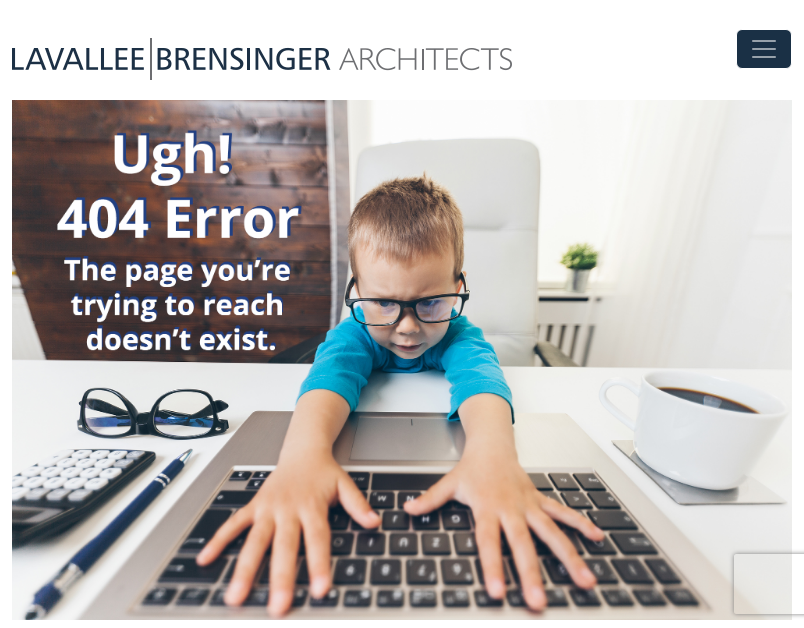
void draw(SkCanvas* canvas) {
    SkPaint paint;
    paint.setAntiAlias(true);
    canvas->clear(0xFFFFFFFF);
    canvas->drawImageRect(SkImages::DeferredFromEncodedData(SkData::MakeFromFileName("img1.png")), SkRect::MakeXYWH(12, 38, 500, 42), SkSamplingOptions());
    paint.setColor(0xFF1A3045);
    canvas->drawRoundRect(SkRect::MakeXYWH(736.5f, 29.5f, 55, 39), 5.5f, 5.5f, paint);
    paint.setStyle(SkPaint::kStroke_Style);
    paint.setStrokeWidth(1);
    paint.setColor(0xFFFFFFFF);
    canvas->drawRoundRect(SkRect::MakeXYWH(736.5f, 29.5f, 55, 39), 5.5f, 5.5f, paint);
    canvas->drawImageRect(SkImages::DeferredFromEncodedData(SkData::MakeFromFileName("img2.png")), SkRect::MakeXYWH(752, 40, 24, 18), SkSamplingOptions());
    canvas->drawImageRect(SkImages::DeferredFromEncodedData(SkData::MakeFromFileName("img3.png")), SkRect::MakeXYWH(12, 100, 780, 520), SkSamplingOptions());
    canvas->save();
    canvas->clipPath(SkPathBuilder(SkPathFillType::kEvenOdd).moveTo(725, 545).lineTo(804, 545).lineTo(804, 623).lineTo(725, 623).close().moveTo(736, 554).lineTo(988, 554).cubicTo(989, 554, 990, 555, 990, 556).lineTo(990, 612).cubicTo(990, 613, 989, 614, 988, 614).lineTo(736, 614).cubicTo(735, 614, 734, 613, 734, 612).lineTo(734, 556).cubicTo(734, 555, 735, 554, 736, 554).close().detach(), true);
    paint.setStyle(SkPaint::kFill_Style);
    paint.setColor(0xFF808080);
    paint.setMaskFilter(SkMaskFilter::MakeBlur(kNormal_SkBlurStyle, 2.5f));
    canvas->drawRoundRect(SkRect::MakeXYWH(734, 554, 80, 60), 2, 2, paint);
    paint.setMaskFilter(nullptr);
    canvas->restore();
}
